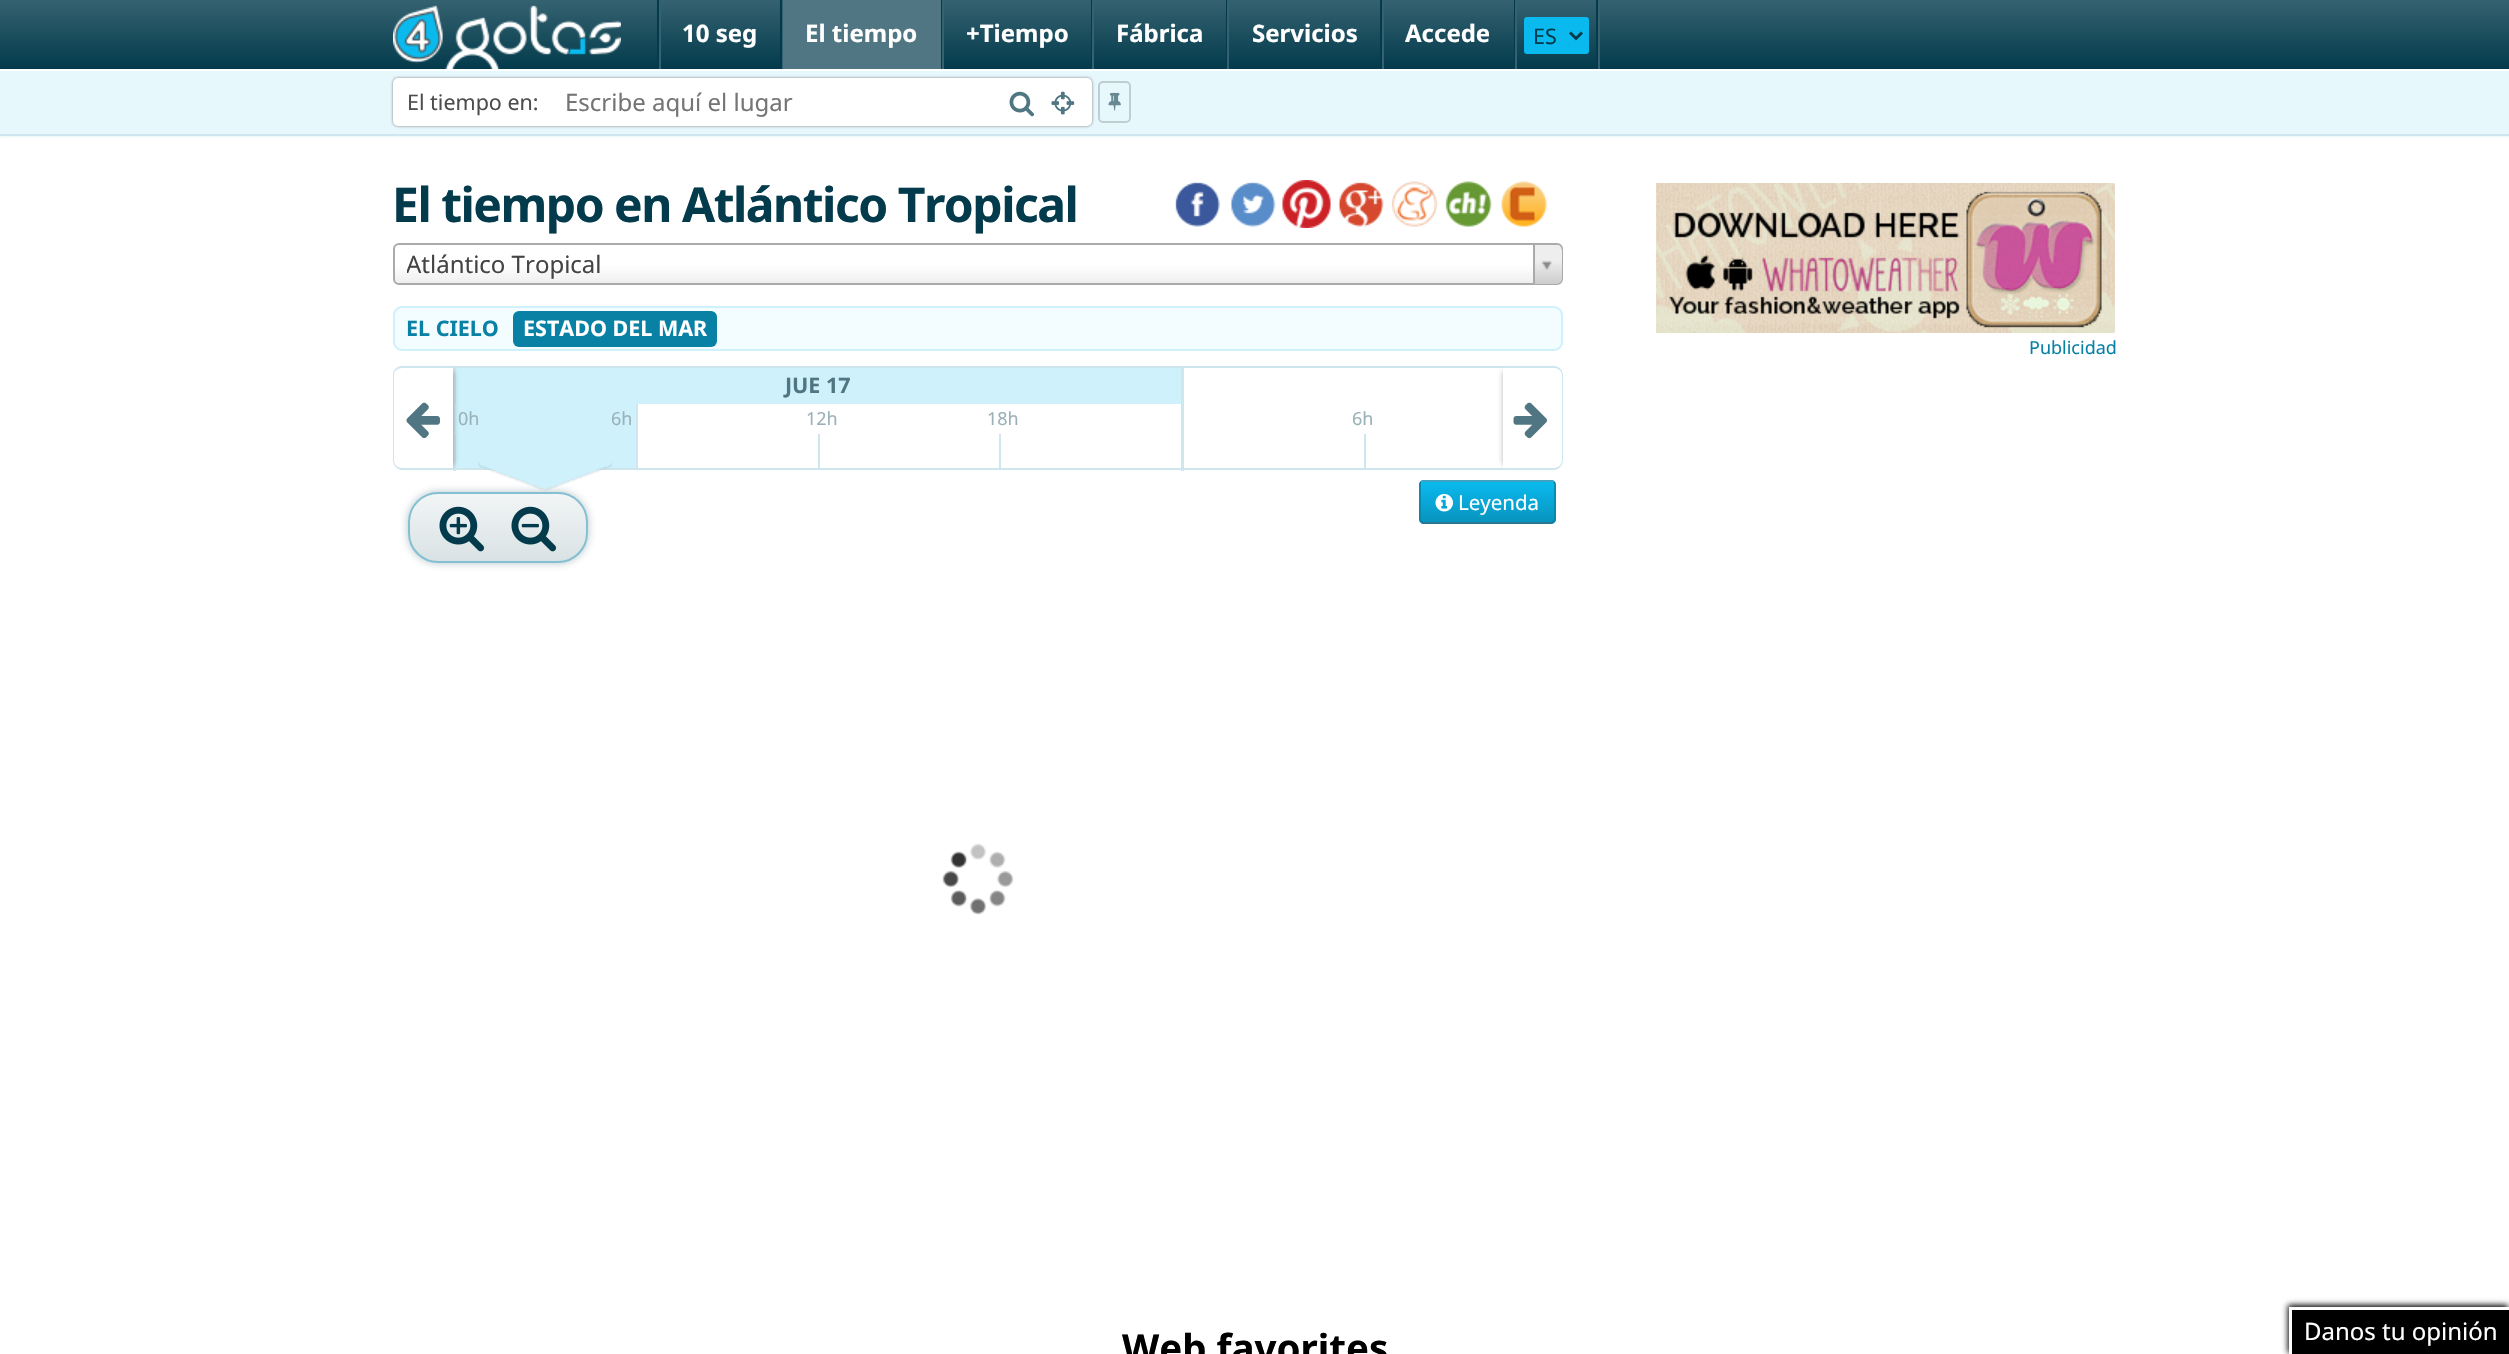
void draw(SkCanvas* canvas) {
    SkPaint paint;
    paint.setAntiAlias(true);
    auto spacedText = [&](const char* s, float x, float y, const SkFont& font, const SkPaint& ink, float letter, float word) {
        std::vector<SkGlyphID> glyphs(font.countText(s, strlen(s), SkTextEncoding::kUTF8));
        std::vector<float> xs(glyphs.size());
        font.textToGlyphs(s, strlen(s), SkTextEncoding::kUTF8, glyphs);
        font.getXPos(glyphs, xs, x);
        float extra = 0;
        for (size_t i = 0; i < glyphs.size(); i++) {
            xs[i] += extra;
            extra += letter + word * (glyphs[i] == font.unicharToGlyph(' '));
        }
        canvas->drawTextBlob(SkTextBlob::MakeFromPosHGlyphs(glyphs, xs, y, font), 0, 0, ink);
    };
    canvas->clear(0xFFFFFFFF);
    {
        const SkColor colors[] = {0xFF356270, 0xFF033B4C};
        const float stops[] = {0, 1};
        const SkPoint ends[] = {{1255, 0}, {1255, 69}};
        paint.setShader(SkGradientShader::MakeLinear(ends, colors, stops, 2, SkTileMode::kClamp));
        paint.setAlpha(255);
    }
    canvas->drawRect(SkRect::MakeXYWH(0, 0, 2509, 69), paint);
    paint.setShader(nullptr);
    paint.setColor(0xFFEBF5F8);
    paint.setMaskFilter(SkMaskFilter::MakeBlur(kNormal_SkBlurStyle, 1));
    canvas->drawRect(SkRect::MakeXYWH(0, 72, 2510, 65), paint);
    paint.setMaskFilter(nullptr);
    canvas->drawImageRect(SkImages::DeferredFromEncodedData(SkData::MakeFromFileName("img1.png")), SkRect::MakeXYWH(393, 5, 228, 64), SkSamplingOptions());
    paint.setColor(0xFF356270);
    canvas->drawRect(SkRect::MakeXYWH(1598, 0, 2, 69), paint);
    paint.setColor(0xFF033B4C);
    canvas->drawRect(SkRect::MakeXYWH(657, 0, 2, 69), paint);
    canvas->drawRect(SkRect::MakeXYWH(780, 0, 2, 69), paint);
    paint.setColor(0xFF356270);
    canvas->drawRect(SkRect::MakeXYWH(659, 0, 2, 69), paint);
    SkFont font1(fontMgr->matchFamilyStyle("Noto Sans", SkFontStyle::Bold()), 24);
    font1.setSubpixel(true);
    paint.setColor(0xFFFFFFFF);
    canvas->drawString("10 seg", 682, 42, font1, paint);
    paint.setColor(0xFF033B4C);
    canvas->drawRect(SkRect::MakeXYWH(941, 0, 1, 69), paint);
    paint.setColor(0xFF356270);
    canvas->drawRect(SkRect::MakeXYWH(782, 0, 1, 69), paint);
    paint.setColor(0xFF4F7682);
    canvas->drawRect(SkRect::MakeXYWH(783, 0, 158, 69), paint);
    paint.setColor(0xFFFFFFFF);
    canvas->drawString("El tiempo", 805, 42, font1, paint);
    paint.setColor(0xFF033B4C);
    canvas->drawRect(SkRect::MakeXYWH(1091, 0, 1, 69), paint);
    paint.setColor(0xFF356270);
    canvas->drawRect(SkRect::MakeXYWH(942, 0, 2, 69), paint);
    paint.setColor(0xFFFFFFFF);
    canvas->drawString("+Tiempo", 966, 42, font1, paint);
    paint.setColor(0xFF033B4C);
    canvas->drawRect(SkRect::MakeXYWH(1226, 0, 1, 69), paint);
    paint.setColor(0xFF356270);
    canvas->drawRect(SkRect::MakeXYWH(1092, 0, 2, 69), paint);
    paint.setColor(0xFFFFFFFF);
    canvas->drawString("Fábrica", 1116, 42, font1, paint);
    paint.setColor(0xFF033B4C);
    canvas->drawRect(SkRect::MakeXYWH(1380, 0, 2, 69), paint);
    paint.setColor(0xFF356270);
    canvas->drawRect(SkRect::MakeXYWH(1227, 0, 2, 69), paint);
    paint.setColor(0xFFFFFFFF);
    canvas->drawString("Servicios", 1252, 42, font1, paint);
    paint.setColor(0xFF033B4C);
    canvas->drawRect(SkRect::MakeXYWH(1514, 0, 1, 69), paint);
    paint.setColor(0xFF356270);
    canvas->drawRect(SkRect::MakeXYWH(1382, 0, 2, 69), paint);
    paint.setColor(0xFFFFFFFF);
    canvas->drawString("Accede", 1405, 42, font1, paint);
    paint.setColor(0xFF033B4C);
    canvas->drawRect(SkRect::MakeXYWH(1596, 0, 2, 69), paint);
    paint.setColor(0xFF356270);
    canvas->drawRect(SkRect::MakeXYWH(1515, 0, 2, 69), paint);
    paint.setColor(0xFF0ABAEE);
    canvas->drawRoundRect(SkRect::MakeXYWH(1524, 17, 65, 37), 3, 3, paint);
    paint.setStyle(SkPaint::kStroke_Style);
    paint.setStrokeWidth(3);
    paint.setColor(0xFF033B4C);
    canvas->drawPath(SkPathBuilder().moveTo(1570, 32.5f).lineTo(1576, 38.5f).lineTo(1582, 32.5f).detach(), paint);
    SkFont font2(fontMgr->matchFamilyStyle("Noto Sans", SkFontStyle::Normal()), 21.5f);
    font2.setSubpixel(true);
    paint.setStyle(SkPaint::kFill_Style);
    canvas->drawString("ES", 1533, 44, font2, paint);
    paint.setColor(0xFFE7F8FD);
    canvas->drawRect(SkRect::MakeXYWH(0, 71, 2509, 63), paint);
    paint.setColor(0xFFCEE6ED);
    canvas->drawRect(SkRect::MakeXYWH(0, 134, 2509, 2), paint);
    paint.setColor(0x80000000);
    paint.setMaskFilter(SkMaskFilter::MakeBlur(kNormal_SkBlurStyle, 1.5f));
    canvas->drawRoundRect(SkRect::MakeXYWH(393, 78, 699, 48), 5, 5, paint);
    paint.setMaskFilter(nullptr);
    paint.setColor(0xFFFFFFFF);
    canvas->drawRoundRect(SkRect::MakeXYWH(393, 78, 699, 48), 5, 5, paint);
    paint.setColor(0xFF4D4D4D);
    canvas->drawString("El tiempo en:", 407, 110, font2, paint);
    SkFont font3(fontMgr->matchFamilyStyle("Noto Sans", SkFontStyle::Normal()), 24);
    font3.setSubpixel(true);
    paint.setColor(0xFF757575);
    canvas->drawString("Escribe aquí el lugar", 565, 111, font3, paint);
    canvas->drawImageRect(SkImages::DeferredFromEncodedData(SkData::MakeFromFileName("img2.png")), SkRect::MakeXYWH(1009, 91, 25, 26), SkSamplingOptions());
    canvas->drawImageRect(SkImages::DeferredFromEncodedData(SkData::MakeFromFileName("img3.png")), SkRect::MakeXYWH(1051, 91, 24, 24), SkSamplingOptions());
    paint.setStyle(SkPaint::kStroke_Style);
    paint.setStrokeWidth(2);
    paint.setColor(0xFFC0CED2);
    canvas->drawRoundRect(SkRect::MakeXYWH(1099, 82, 31, 40), 4, 4, paint);
    canvas->drawImageRect(SkImages::DeferredFromEncodedData(SkData::MakeFromFileName("img4.png")), SkRect::MakeXYWH(1108, 92, 13, 19), SkSamplingOptions());
    SkFont font4(fontMgr->matchFamilyStyle("Noto Sans", SkFontStyle::Bold()), 48);
    font4.setSubpixel(true);
    paint.setStyle(SkPaint::kFill_Style);
    paint.setColor(0xFF033B4C);
    spacedText("El tiempo en Atlántico Tropical", 392, 222, font4, paint, -1.5f, 0);
    canvas->drawImageRect(SkImages::DeferredFromEncodedData(SkData::MakeFromFileName("img5.png")), SkRect::MakeXYWH(1175, 182, 45, 45), SkSamplingOptions());
    canvas->drawImageRect(SkImages::DeferredFromEncodedData(SkData::MakeFromFileName("img6.png")), SkRect::MakeXYWH(1230, 181, 46, 46), SkSamplingOptions());
    canvas->drawImageRect(SkImages::DeferredFromEncodedData(SkData::MakeFromFileName("img7.png")), SkRect::MakeXYWH(1282, 180, 49, 48), SkSamplingOptions());
    canvas->drawImageRect(SkImages::DeferredFromEncodedData(SkData::MakeFromFileName("img8.png")), SkRect::MakeXYWH(1338, 181, 46, 46), SkSamplingOptions());
    canvas->drawImageRect(SkImages::DeferredFromEncodedData(SkData::MakeFromFileName("img9.png")), SkRect::MakeXYWH(1391, 181, 47, 46), SkSamplingOptions());
    canvas->drawImageRect(SkImages::DeferredFromEncodedData(SkData::MakeFromFileName("img10.png")), SkRect::MakeXYWH(1445, 181, 47, 46), SkSamplingOptions());
    canvas->drawImageRect(SkImages::DeferredFromEncodedData(SkData::MakeFromFileName("img11.png")), SkRect::MakeXYWH(1501, 181, 46, 46), SkSamplingOptions());
    {
        const SkColor colors[] = {0xFFEEEEEE, 0xFFFFFFFF};
        const float stops[] = {0, 0.5f};
        const SkPoint ends[] = {{395, 284}, {395, 245}};
        paint.setShader(SkGradientShader::MakeLinear(ends, colors, stops, 2, SkTileMode::kClamp));
        paint.setAlpha(255);
    }
    canvas->drawRoundRect(SkRect::MakeXYWH(395, 245, 1167, 39), 5, 5, paint);
    paint.setStyle(SkPaint::kStroke_Style);
    paint.setShader(nullptr);
    paint.setColor(0xFFAAAAAA);
    canvas->drawRoundRect(SkRect::MakeXYWH(394, 244, 1168, 40), 5, 5, paint);
    canvas->save();
    canvas->clipRect(SkRect::MakeXYWH(407, 245, 1116, 39));
    paint.setStyle(SkPaint::kFill_Style);
    paint.setColor(0xFF444444);
    canvas->drawString("Atlántico Tropical", 406, 273, font3, paint);
    canvas->restore();
    canvas->save();
    canvas->clipPath(SkPathBuilder().moveTo(400, 245).lineTo(1557, 245).cubicTo(1560, 245, 1562, 247, 1562, 250).lineTo(1562, 279).cubicTo(1562, 282, 1560, 284, 1557, 284).lineTo(400, 284).cubicTo(397, 284, 395, 282, 395, 279).lineTo(395, 250).cubicTo(395, 247, 397, 245, 400, 245).close().detach(), true);
    {
        const SkColor colors[] = {0xFFCCCCCC, 0xFFEEEEEE};
        const float stops[] = {0, 0.6f};
        const SkPoint ends[] = {{1535, 284}, {1535, 245}};
        paint.setShader(SkGradientShader::MakeLinear(ends, colors, stops, 2, SkTileMode::kClamp));
        paint.setAlpha(255);
    }
    canvas->drawPath(SkPathBuilder().moveTo(1533, 245).lineTo(1556, 245).cubicTo(1559.5f, 245, 1562, 247.5f, 1562, 251).lineTo(1562, 278).cubicTo(1562, 281.5f, 1559.5f, 284, 1556, 284).lineTo(1533, 284).close().detach(), paint);
    canvas->restore();
    paint.setShader(nullptr);
    paint.setColor(0xFFAAAAAA);
    canvas->drawRect(SkRect::MakeXYWH(1533, 245, 2, 39), paint);
    canvas->drawImageRect(SkImages::DeferredFromEncodedData(SkData::MakeFromFileName("img12.png")), SkRect::MakeXYWH(1541, 260, 11, 10), SkSamplingOptions());
    paint.setColor(0xFFF3FCFE);
    canvas->drawRoundRect(SkRect::MakeXYWH(394, 307, 1168, 43), 8, 8, paint);
    paint.setStyle(SkPaint::kStroke_Style);
    paint.setColor(0xFFCEF1FC);
    canvas->drawRoundRect(SkRect::MakeXYWH(394, 307, 1168, 43), 8, 8, paint);
    SkFont font5(fontMgr->matchFamilyStyle("Noto Sans", SkFontStyle::Bold()), 21.5f);
    font5.setSubpixel(true);
    paint.setStyle(SkPaint::kFill_Style);
    paint.setColor(0xFF0881A5);
    canvas->drawString("EL CIELO", 406, 336, font5, paint);
    canvas->drawRoundRect(SkRect::MakeXYWH(513, 311, 204, 36), 6, 6, paint);
    paint.setColor(0xFFFFFFFF);
    canvas->drawString("ESTADO DEL MAR", 523, 336, font5, paint);
    paint.setColor(0xFFCEF1FC);
    canvas->drawRect(SkRect::MakeXYWH(456, 435, 180, 33), paint);
    paint.setColor(0xFFCEE6ED);
    canvas->drawRect(SkRect::MakeXYWH(1364, 468, 139, 2), paint);
    canvas->drawRect(SkRect::MakeXYWH(1364, 434, 2, 36), paint);
    canvas->drawRect(SkRect::MakeXYWH(999, 468, 366, 2), paint);
    canvas->drawRect(SkRect::MakeXYWH(999, 434, 2, 36), paint);
    canvas->drawRect(SkRect::MakeXYWH(818, 468, 183, 2), paint);
    canvas->drawRect(SkRect::MakeXYWH(818, 434, 2, 36), paint);
    canvas->drawRect(SkRect::MakeXYWH(636, 468, 183, 2), paint);
    canvas->drawRect(SkRect::MakeXYWH(636, 404, 2, 66), paint);
    canvas->drawRect(SkRect::MakeXYWH(453, 468, 185, 2), paint);
    paint.setColor(0xFFCEF1FC);
    canvas->drawRect(SkRect::MakeXYWH(455, 404, 181, 31), paint);
    paint.setColor(0xFFCEE6ED);
    canvas->drawRect(SkRect::MakeXYWH(453, 404, 2, 31), paint);
    canvas->drawRect(SkRect::MakeXYWH(453, 434, 3, 37), paint);
    canvas->drawRect(SkRect::MakeXYWH(453, 366, 1050, 2), paint);
    paint.setColor(0xFFCEF1FC);
    canvas->drawRect(SkRect::MakeXYWH(456, 368, 725, 36), paint);
    paint.setColor(0xFFCEE6ED);
    canvas->drawRect(SkRect::MakeXYWH(453, 366, 3, 39), paint);
    paint.setColor(0x33000000);
    paint.setMaskFilter(SkMaskFilter::MakeBlur(kNormal_SkBlurStyle, 2));
    canvas->drawRoundRect(SkRect::MakeXYWH(401, 369, 54, 98), 6, 6, paint);
    paint.setMaskFilter(nullptr);
    paint.setColor(0xFFFFFFFF);
    canvas->drawPath(SkPathBuilder().moveTo(402, 366).lineTo(453, 366).lineTo(453, 470).lineTo(402, 470).cubicTo(397, 470, 393, 466, 393, 461).lineTo(393, 375).cubicTo(393, 370, 397, 366, 402, 366).close().detach(), paint);
    paint.setColor(0xFFCEE6ED);
    canvas->drawPath(SkPathBuilder(SkPathFillType::kEvenOdd).moveTo(402, 366).lineTo(453, 366).lineTo(453, 470).lineTo(402, 470).cubicTo(397, 470, 393, 465, 393, 460).lineTo(393, 375).cubicTo(393, 370, 397, 366, 402, 366).close().moveTo(402, 368).lineTo(453, 368).lineTo(453, 468).lineTo(402, 468).cubicTo(398, 468, 394, 465, 394, 460).lineTo(394, 375).cubicTo(394, 371, 398, 368, 402, 368).close().detach(), paint);
    canvas->drawImageRect(SkImages::DeferredFromEncodedData(SkData::MakeFromFileName("img13.png")), SkRect::MakeXYWH(406, 402, 34, 37), SkSamplingOptions());
    paint.setColor(0x4D033B4C);
    paint.setMaskFilter(SkMaskFilter::MakeBlur(kNormal_SkBlurStyle, 4));
    canvas->drawRoundRect(SkRect::MakeXYWH(408, 492, 180, 71), 30, 30, paint);
    paint.setMaskFilter(nullptr);
    canvas->drawImageRect(SkImages::DeferredFromEncodedData(SkData::MakeFromFileName("img14.png")), SkRect::MakeXYWH(478, 462, 134, 29), SkSamplingOptions());
    paint.setColor(0xFFCEE6ED);
    canvas->drawRect(SkRect::MakeXYWH(1181, 366, 3, 105), paint);
    paint.setColor(0xFF4F7682);
    canvas->drawString("JUE 17", 785, 393, font5, paint);
    SkFont font6(fontMgr->matchFamilyStyle("Noto Sans", SkFontStyle::Normal()), 18);
    font6.setSubpixel(true);
    paint.setColor(0xFF9AB1B7);
    canvas->drawString("0h", 458, 425, font6, paint);
    canvas->drawString("6h", 611, 425, font6, paint);
    canvas->drawString("12h", 806, 425, font6, paint);
    canvas->drawString("18h", 987, 425, font6, paint);
    canvas->drawString("6h", 1352, 425, font6, paint);
    paint.setColor(0x33000000);
    paint.setMaskFilter(SkMaskFilter::MakeBlur(kNormal_SkBlurStyle, 2));
    canvas->drawRoundRect(SkRect::MakeXYWH(1502, 369, 54, 98), 6, 6, paint);
    paint.setMaskFilter(nullptr);
    paint.setColor(0xFFFFFFFF);
    canvas->drawPath(SkPathBuilder().moveTo(1503, 366).lineTo(1554, 366).cubicTo(1559, 366, 1563, 370, 1563, 375).lineTo(1563, 461).cubicTo(1563, 466, 1559, 470, 1554, 470).lineTo(1503, 470).close().detach(), paint);
    paint.setColor(0xFFCEE6ED);
    canvas->drawPath(SkPathBuilder(SkPathFillType::kEvenOdd).moveTo(1503, 366).lineTo(1554, 366).cubicTo(1559, 366, 1563, 370, 1563, 375).lineTo(1563, 460).cubicTo(1563, 465, 1559, 470, 1554, 470).lineTo(1503, 470).close().moveTo(1503, 368).lineTo(1554, 368).cubicTo(1558, 368, 1562, 371, 1562, 375).lineTo(1562, 460).cubicTo(1562, 465, 1558, 468, 1554, 468).lineTo(1503, 468).close().detach(), paint);
    canvas->drawImageRect(SkImages::DeferredFromEncodedData(SkData::MakeFromFileName("img15.png")), SkRect::MakeXYWH(1513, 402, 34, 37), SkSamplingOptions());
    canvas->save();
    canvas->clipPath(SkPathBuilder().moveTo(1424, 480).lineTo(1551, 480).cubicTo(1554, 480, 1556, 482, 1556, 485).lineTo(1556, 519).cubicTo(1556, 522, 1554, 524, 1551, 524).lineTo(1424, 524).cubicTo(1421, 524, 1419, 522, 1419, 519).lineTo(1419, 485).cubicTo(1419, 482, 1421, 480, 1424, 480).close().detach(), true);
    {
        const SkColor colors[] = {0xFF0ABAEE, 0xFF0894BF};
        const float stops[] = {0, 1};
        const SkPoint ends[] = {{1487, 441}, {1487, 482}};
        paint.setShader(SkGradientShader::MakeLinear(ends, colors, stops, 2, SkTileMode::kClamp));
        paint.setAlpha(255);
    }
    canvas->drawRect(SkRect::MakeXYWH(1419, 480, 137, 2), paint);
    {
        const SkColor colors[] = {0xFF0ABAEE, 0xFF0894BF};
        const float stops[] = {0, 1};
        const SkPoint ends[] = {{1487, 482}, {1487, 522}};
        paint.setShader(SkGradientShader::MakeLinear(ends, colors, stops, 2, SkTileMode::kClamp));
        paint.setAlpha(255);
    }
    canvas->drawRect(SkRect::MakeXYWH(1419, 482, 137, 40), paint);
    {
        const SkColor colors[] = {0xFF0ABAEE, 0xFF0894BF};
        const float stops[] = {0, 1};
        const SkPoint ends[] = {{1487, 522}, {1487, 563}};
        paint.setShader(SkGradientShader::MakeLinear(ends, colors, stops, 2, SkTileMode::kClamp));
        paint.setAlpha(255);
    }
    canvas->drawRect(SkRect::MakeXYWH(1419, 522, 137, 2), paint);
    canvas->restore();
    paint.setStyle(SkPaint::kStroke_Style);
    paint.setStrokeWidth(1.5f);
    paint.setShader(nullptr);
    paint.setColor(0xFF52A7C0);
    canvas->drawPath(SkPathBuilder().moveTo(1421, 482).cubicTo(1421.5f, 481, 1422.5f, 481, 1423.5f, 481).lineTo(1551, 481).cubicTo(1552, 481, 1553, 481, 1553.5f, 482).detach(), paint);
    paint.setColor(0xFF0881A5);
    canvas->drawPath(SkPathBuilder().moveTo(1553.5f, 482).cubicTo(1554.5f, 482.5f, 1555, 483.5f, 1555, 484.5f).lineTo(1555, 519).cubicTo(1555, 520, 1554.5f, 521, 1553.5f, 521.5f).detach(), paint);
    paint.setColor(0xFF356270);
    canvas->drawPath(SkPathBuilder().moveTo(1553.5f, 521.5f).cubicTo(1553, 522.5f, 1552, 523, 1551, 523).lineTo(1423.5f, 523).cubicTo(1422.5f, 523, 1421.5f, 522.5f, 1421, 521.5f).detach(), paint);
    paint.setColor(0xFF0881A5);
    canvas->drawPath(SkPathBuilder().moveTo(1421, 521.5f).cubicTo(1420, 521, 1420, 520, 1420, 519).lineTo(1420, 484.5f).cubicTo(1420, 483.5f, 1420, 482.5f, 1421, 482).detach(), paint);
    canvas->drawImageRect(SkImages::DeferredFromEncodedData(SkData::MakeFromFileName("img16.png")), SkRect::MakeXYWH(1435, 494, 18, 18), SkSamplingOptions());
    SkFont font7(fontMgr->matchFamilyStyle("Noto Sans", SkFontStyle::Normal()), 20.5f);
    font7.setSubpixel(true);
    paint.setStyle(SkPaint::kFill_Style);
    paint.setColor(0xFFFFFFFF);
    canvas->drawString("Leyenda", 1458, 510, font7, paint);
    canvas->drawImageRect(SkImages::DeferredFromEncodedData(SkData::MakeFromFileName("img17.png")), SkRect::MakeXYWH(942, 843, 72, 72), SkSamplingOptions());
    canvas->save();
    canvas->clipPath(SkPathBuilder().moveTo(438, 492).lineTo(558, 492).cubicTo(574.5f, 492, 588, 505.5f, 588, 522).lineTo(588, 533).cubicTo(588, 549.5f, 574.5f, 563, 558, 563).lineTo(438, 563).cubicTo(421.5f, 563, 408, 549.5f, 408, 533).lineTo(408, 522).cubicTo(408, 505.5f, 421.5f, 492, 438, 492).close().detach(), true);
    {
        const SkColor colors[] = {0xFFF2F5F6, 0xFFD9E2E4};
        const float stops[] = {0, 1};
        const SkPoint ends[] = {{498, 494}, {498, 561}};
        paint.setShader(SkGradientShader::MakeLinear(ends, colors, stops, 2, SkTileMode::kClamp));
        paint.setAlpha(255);
    }
    canvas->drawRect(SkRect::MakeXYWH(408, 494, 180, 67), paint);
    canvas->restore();
    paint.setStyle(SkPaint::kStroke_Style);
    paint.setStrokeWidth(2);
    paint.setShader(nullptr);
    paint.setColor(0xFF84C0D2);
    canvas->drawRoundRect(SkRect::MakeXYWH(409, 493, 178, 69), 29, 29, paint);
    canvas->drawImageRect(SkImages::DeferredFromEncodedData(SkData::MakeFromFileName("img18.png")), SkRect::MakeXYWH(439, 506, 45, 46), SkSamplingOptions());
    canvas->drawImageRect(SkImages::DeferredFromEncodedData(SkData::MakeFromFileName("img19.png")), SkRect::MakeXYWH(511, 506, 45, 46), SkSamplingOptions());
    canvas->drawImageRect(SkImages::DeferredFromEncodedData(SkData::MakeFromFileName("img20.png")), SkRect::MakeXYWH(1656, 183, 459, 150), SkSamplingOptions());
    paint.setStyle(SkPaint::kFill_Style);
    paint.setColor(0xFF0881A5);
    canvas->drawString("Publicidad", 2029, 354, font6, paint);
    SkFont font8(fontMgr->matchFamilyStyle("Noto Sans", SkFontStyle::Bold()), 38.5f);
    font8.setSubpixel(true);
    paint.setColor(0xFF000000);
    canvas->drawString("Web favorites", 1122, 1362, font8, paint);
    paint.setMaskFilter(SkMaskFilter::MakeBlur(kNormal_SkBlurStyle, 3));
    canvas->drawRect(SkRect::MakeXYWH(2288, 1305, 220, 48), paint);
    paint.setMaskFilter(nullptr);
    canvas->drawRect(SkRect::MakeXYWH(2292, 1310, 217, 44), paint);
    paint.setColor(0xFFFFFFFF);
    canvas->drawRect(SkRect::MakeXYWH(2289, 1307, 220, 3), paint);
    canvas->drawRect(SkRect::MakeXYWH(2289, 1307, 3, 47), paint);
    canvas->drawString("Danos tu opinión", 2304, 1340, font3, paint);
}
